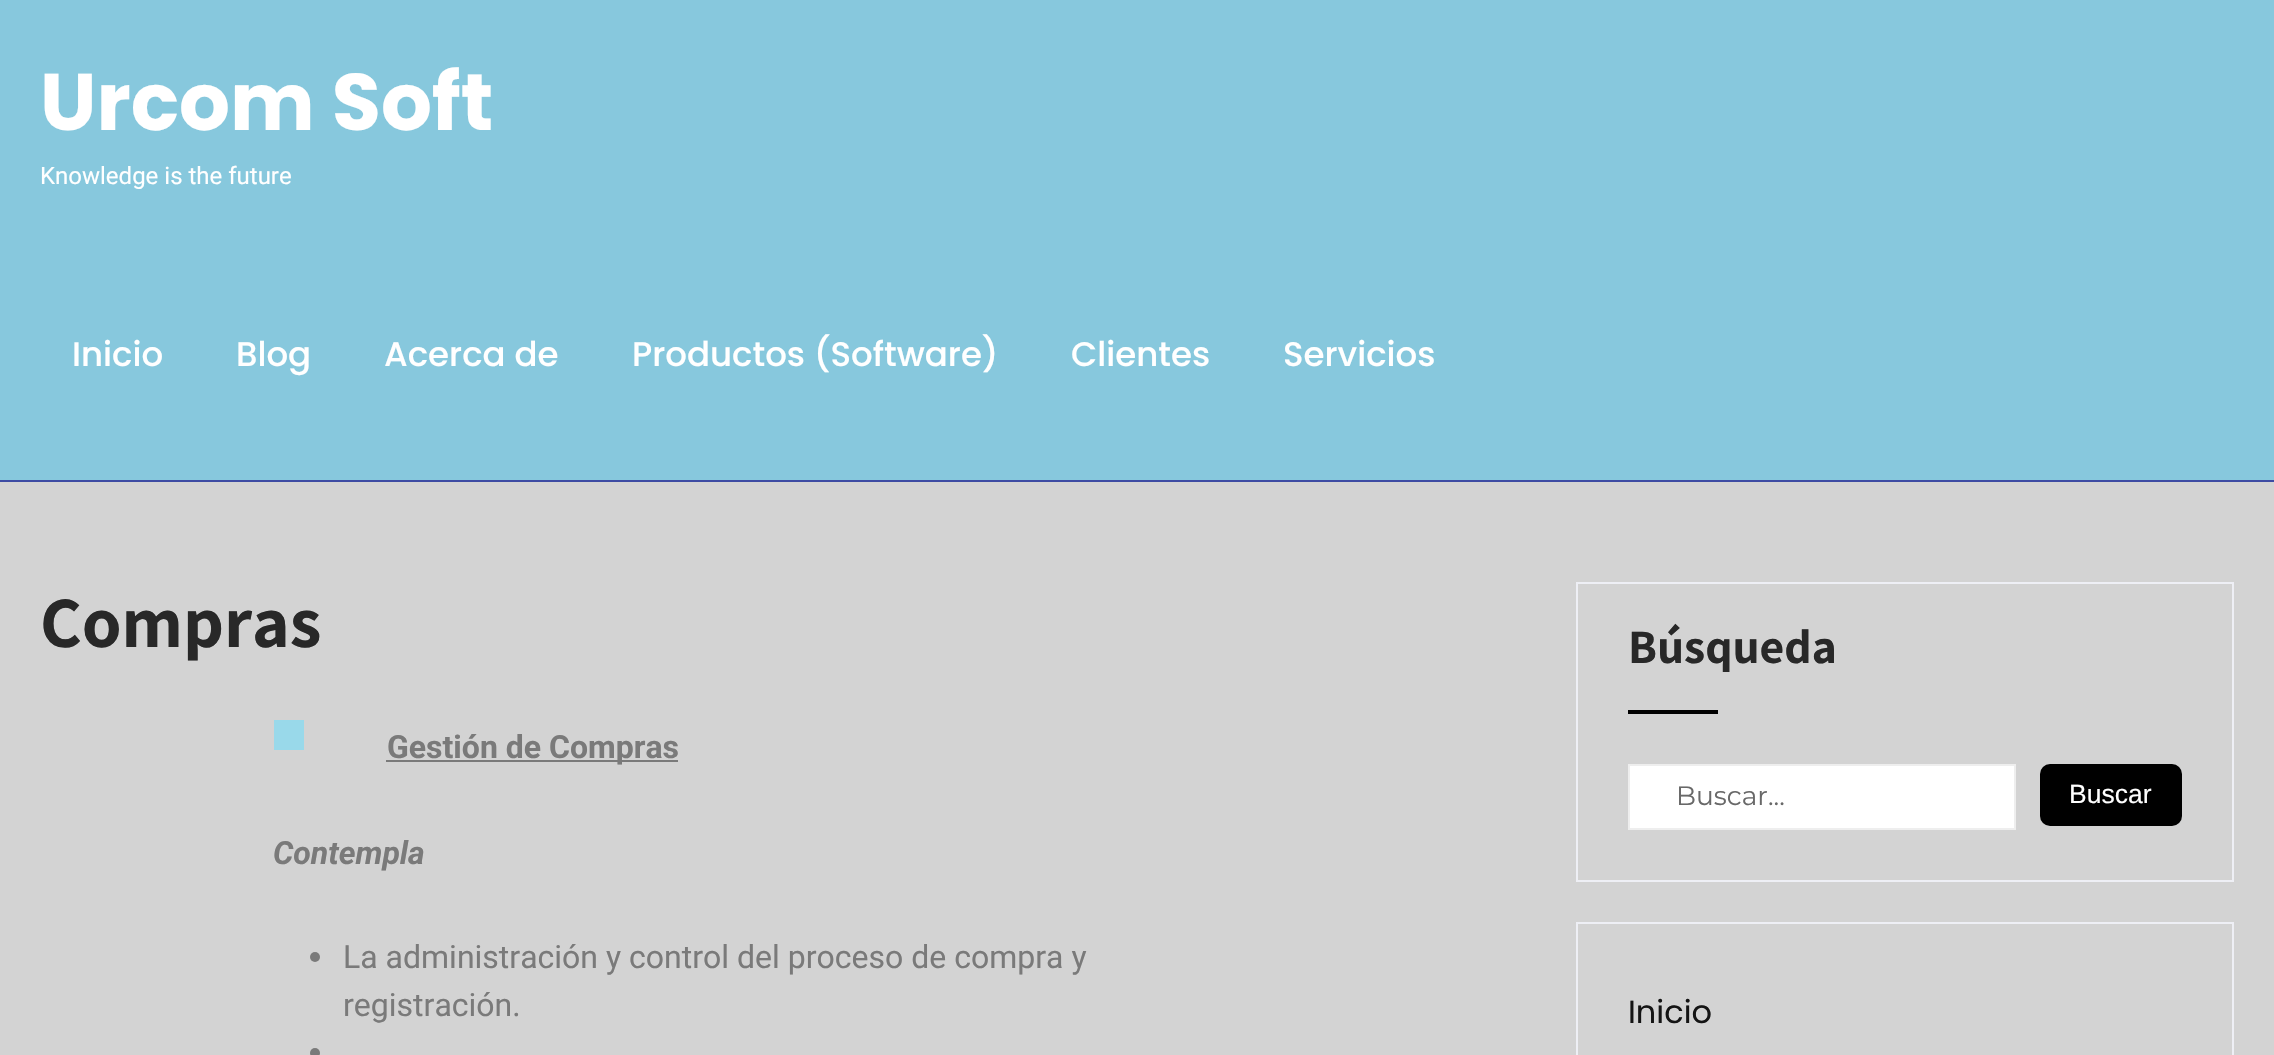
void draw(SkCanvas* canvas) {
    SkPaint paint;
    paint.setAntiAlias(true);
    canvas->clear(0xFFD3D3D3);
    paint.setColor(0xFF87C8DD);
    canvas->drawRect(SkRect::MakeXYWH(0, 0, 2274, 480), paint);
    paint.setColor(0xFF3D4BA3);
    canvas->drawRect(SkRect::MakeXYWH(0, 480, 2274, 2), paint);
    SkFont font1(fontMgr->matchFamilyStyle("Poppins", SkFontStyle::Bold()), 80);
    font1.setSubpixel(true);
    paint.setColor(0xFFFFFFFF);
    canvas->drawString("Urcom Soft", 40, 130, font1, paint);
    SkFont font2(fontMgr->matchFamilyStyle("Roboto", SkFontStyle::Normal()), 24);
    font2.setSubpixel(true);
    canvas->drawString("Knowledge is the future", 40, 184, font2, paint);
    SkFont font3(fontMgr->matchFamilyStyle("Poppins", SkFontStyle(500, SkFontStyle::kNormal_Width, SkFontStyle::kUpright_Slant)), 34);
    font3.setSubpixel(true);
    canvas->drawString("Inicio", 72, 366, font3, paint);
    canvas->drawString("Blog", 236, 366, font3, paint);
    canvas->drawString("Acerca de", 384, 366, font3, paint);
    canvas->drawString("Productos (Software)", 632, 366, font3, paint);
    canvas->drawString("Clientes", 1071, 366, font3, paint);
    canvas->drawString("Servicios", 1283, 366, font3, paint);
    SkFont font4(fontMgr->matchFamilyStyle("Assistant", SkFontStyle::Bold()), 72);
    font4.setSubpixel(true);
    paint.setColor(0xFF282828);
    canvas->drawString("Compras", 40, 647, font4, paint);
    paint.setColor(0xFF99D9EA);
    canvas->drawRect(SkRect::MakeXYWH(274, 720, 30, 30), paint);
    paint.setColor(0xFF7A7A7A);
    canvas->drawRect(SkRect::MakeXYWH(386, 760, 292, 2), paint);
    SkFont font5(fontMgr->matchFamilyStyle("Roboto", SkFontStyle::Bold()), 32);
    font5.setSubpixel(true);
    canvas->drawString("Gestión de Compras", 387, 758, font5, paint);
    SkFont font6(fontMgr->matchFamilyStyle("Roboto", SkFontStyle::BoldItalic()), 32);
    font6.setSubpixel(true);
    canvas->drawString("Contempla", 273, 864, font6, paint);
    canvas->drawCircle(315, 957, 5, paint);
    SkFont font7(fontMgr->matchFamilyStyle("Roboto", SkFontStyle::Normal()), 32);
    font7.setSubpixel(true);
    canvas->drawString("La administración y control del proceso de compra y", 343, 968, font7, paint);
    canvas->drawString("registración.", 343, 1016, font7, paint);
    canvas->drawCircle(315, 1053, 5, paint);
    paint.setStyle(SkPaint::kStroke_Style);
    paint.setStrokeWidth(2);
    paint.setColor(0xFFEEEFF5);
    canvas->drawRect(SkRect::MakeXYWH(1577, 583, 656, 298), paint);
    SkFont font8(fontMgr->matchFamilyStyle("Assistant", SkFontStyle::Bold()), 48);
    font8.setSubpixel(true);
    paint.setStyle(SkPaint::kFill_Style);
    paint.setColor(0xFF282828);
    canvas->drawString("Búsqueda", 1628, 663, font8, paint);
    paint.setColor(0xFF000000);
    canvas->drawRect(SkRect::MakeXYWH(1628, 710, 90, 4), paint);
    paint.setColor(0xFFFFFFFF);
    canvas->drawRect(SkRect::MakeXYWH(1629, 765, 386, 64), paint);
    paint.setStyle(SkPaint::kStroke_Style);
    paint.setColor(0xFFEEEEEE);
    canvas->drawRect(SkRect::MakeXYWH(1629, 765, 386, 64), paint);
    SkFont font9(fontMgr->matchFamilyStyle("Montserrat", SkFontStyle::Normal()), 26.5f);
    font9.setSubpixel(true);
    paint.setStyle(SkPaint::kFill_Style);
    paint.setColor(0xFF686868);
    canvas->drawString("Buscar...", 1676, 805, font9, paint);
    paint.setColor(0xFF000000);
    canvas->drawRoundRect(SkRect::MakeXYWH(2040, 764, 142, 62), 10, 10, paint);
    SkFont font10(fontMgr->matchFamilyStyle("Liberation Sans", SkFontStyle::Normal()), 26.5f);
    font10.setSubpixel(true);
    paint.setColor(0xFFFFFFFF);
    canvas->drawString("Buscar", 2069, 803, font10, paint);
    paint.setStyle(SkPaint::kStroke_Style);
    paint.setColor(0xFFEEEFF5);
    canvas->drawRect(SkRect::MakeXYWH(1577, 923, 656, 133), paint);
    SkFont font11(fontMgr->matchFamilyStyle("Poppins", SkFontStyle::Normal()), 32);
    font11.setSubpixel(true);
    paint.setStyle(SkPaint::kFill_Style);
    paint.setColor(0xFF141414);
    canvas->drawString("Inicio", 1628, 1023, font11, paint);
}
